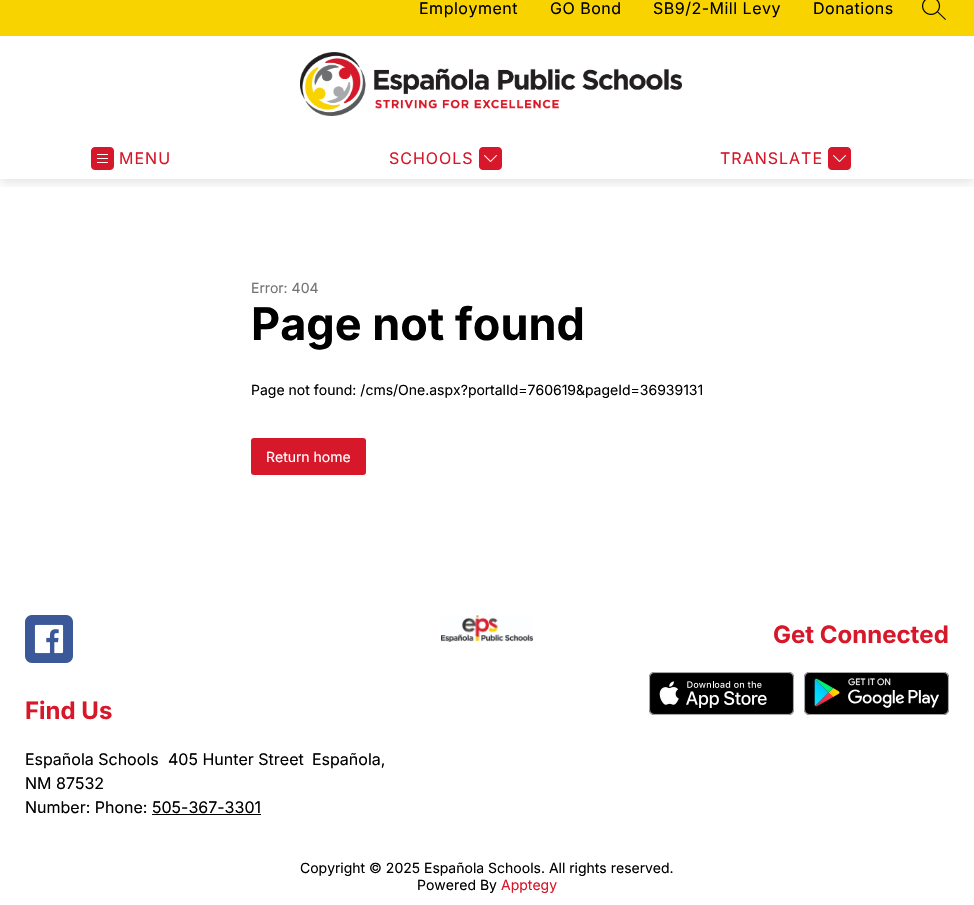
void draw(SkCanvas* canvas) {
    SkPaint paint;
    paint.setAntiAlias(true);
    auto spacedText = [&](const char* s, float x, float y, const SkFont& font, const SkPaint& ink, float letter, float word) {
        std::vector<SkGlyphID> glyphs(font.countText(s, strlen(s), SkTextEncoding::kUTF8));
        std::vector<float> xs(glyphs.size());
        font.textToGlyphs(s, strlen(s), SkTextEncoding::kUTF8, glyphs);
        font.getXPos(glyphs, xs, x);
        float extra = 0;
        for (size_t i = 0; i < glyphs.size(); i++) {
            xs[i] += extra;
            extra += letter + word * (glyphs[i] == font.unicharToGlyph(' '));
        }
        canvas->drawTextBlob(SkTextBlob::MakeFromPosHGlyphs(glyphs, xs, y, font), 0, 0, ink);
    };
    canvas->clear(0xFFFFFFFF);
    canvas->save();
    canvas->clipRect(SkRect::MakeXYWH(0, 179, 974, 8));
    paint.setColor(0x1A000000);
    paint.setMaskFilter(SkMaskFilter::MakeBlur(kNormal_SkBlurStyle, 5));
    canvas->drawRect(SkRect::MakeXYWH(0, -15, 974, 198), paint);
    paint.setMaskFilter(nullptr);
    canvas->restore();
    paint.setColor(0xFFF8D300);
    canvas->drawRect(SkRect::MakeXYWH(0, 0, 974, 36), paint);
    SkFont font1(fontMgr->matchFamilyStyle("Inter", SkFontStyle::Normal()), 16);
    font1.setSubpixel(true);
    paint.setColor(0xFF000000);
    spacedText("Employment", 419, 14, font1, paint, 0.5f, 0);
    spacedText("GO Bond", 550, 14, font1, paint, 0.5f, 0);
    spacedText("SB9/2-Mill Levy", 653, 14, font1, paint, 0.5f, 0);
    spacedText("Donations", 813, 14, font1, paint, 0.5f, 0);
    canvas->drawImageRect(SkImages::DeferredFromEncodedData(SkData::MakeFromFileName("img1.png")), SkRect::MakeXYWH(922, 0, 24, 20), SkSamplingOptions());
    canvas->drawImageRect(SkImages::DeferredFromEncodedData(SkData::MakeFromFileName("img2.png")), SkRect::MakeXYWH(300, 52, 382, 64), SkSamplingOptions());
    canvas->drawImageRect(SkImages::DeferredFromEncodedData(SkData::MakeFromFileName("img3.png")), SkRect::MakeXYWH(91, 147, 23, 23), SkSamplingOptions());
    paint.setColor(0xFFD7182A);
    spacedText("MENU", 119, 164, font1, paint, 1, 0);
    spacedText("SCHOOLS", 389, 164, font1, paint, 1, 0);
    canvas->drawImageRect(SkImages::DeferredFromEncodedData(SkData::MakeFromFileName("img4.png")), SkRect::MakeXYWH(479, 147, 23, 23), SkSamplingOptions());
    spacedText("TRANSLATE", 720, 164, font1, paint, 1, 0);
    canvas->drawImageRect(SkImages::DeferredFromEncodedData(SkData::MakeFromFileName("img4.png")), SkRect::MakeXYWH(828, 147, 23, 23), SkSamplingOptions());
    SkFont font2(fontMgr->matchFamilyStyle("Inter", SkFontStyle::Normal()), 14);
    font2.setSubpixel(true);
    paint.setColor(0xFF747474);
    canvas->drawString("Error: 404", 251, 293, font2, paint);
    SkFont font3(fontMgr->matchFamilyStyle("Inter", SkFontStyle::Bold()), 45);
    font3.setSubpixel(true);
    paint.setColor(0xFF000000);
    canvas->drawString("Page not found", 251, 340, font3, paint);
    canvas->drawString("Page not found: /cms/One.aspx?portalId=760619&pageId=36939131", 251, 395, font2, paint);
    paint.setColor(0xFFD7182A);
    canvas->drawRoundRect(SkRect::MakeXYWH(251, 438, 115, 37), 3, 3, paint);
    paint.setColor(0xFFFFFFFF);
    canvas->drawString("Return home", 266, 462, font2, paint);
    canvas->drawImageRect(SkImages::DeferredFromEncodedData(SkData::MakeFromFileName("img5.png")), SkRect::MakeXYWH(441, 615, 92, 27), SkSamplingOptions());
    SkFont font4(fontMgr->matchFamilyStyle("Inter", SkFontStyle::Bold()), 24);
    font4.setSubpixel(true);
    paint.setColor(0xFFD7182A);
    canvas->drawString("Get Connected", 773, 643, font4, paint);
    canvas->drawImageRect(SkImages::DeferredFromEncodedData(SkData::MakeFromFileName("img6.png")), SkRect::MakeXYWH(649, 672, 145, 43), SkSamplingOptions());
    canvas->drawImageRect(SkImages::DeferredFromEncodedData(SkData::MakeFromFileName("img7.png")), SkRect::MakeXYWH(804, 672, 145, 43), SkSamplingOptions());
    canvas->drawImageRect(SkImages::DeferredFromEncodedData(SkData::MakeFromFileName("img8.png")), SkRect::MakeXYWH(25, 615, 48, 48), SkSamplingOptions());
    canvas->drawString("Find Us", 25, 719, font4, paint);
    paint.setColor(0xFF000000);
    canvas->drawString("Española Schools", 25, 765, font1, paint);
    canvas->drawString("405 Hunter Street", 168, 765, font1, paint);
    canvas->drawString("Española,", 312, 765, font1, paint);
    canvas->drawString("NM 87532", 25, 789, font1, paint);
    canvas->drawString("Number: Phone: 505-367-3301", 25, 813, font1, paint);
    canvas->drawRect(SkRect::MakeXYWH(152, 814, 109, 1), paint);
    canvas->drawString("Copyright © 2025 Española Schools. All rights reserved.", 300, 873, font2, paint);
    canvas->drawString("Powered By", 417, 890, font2, paint);
    paint.setColor(0xFFD7182A);
    canvas->drawString("Apptegy", 501, 890, font2, paint);
}
